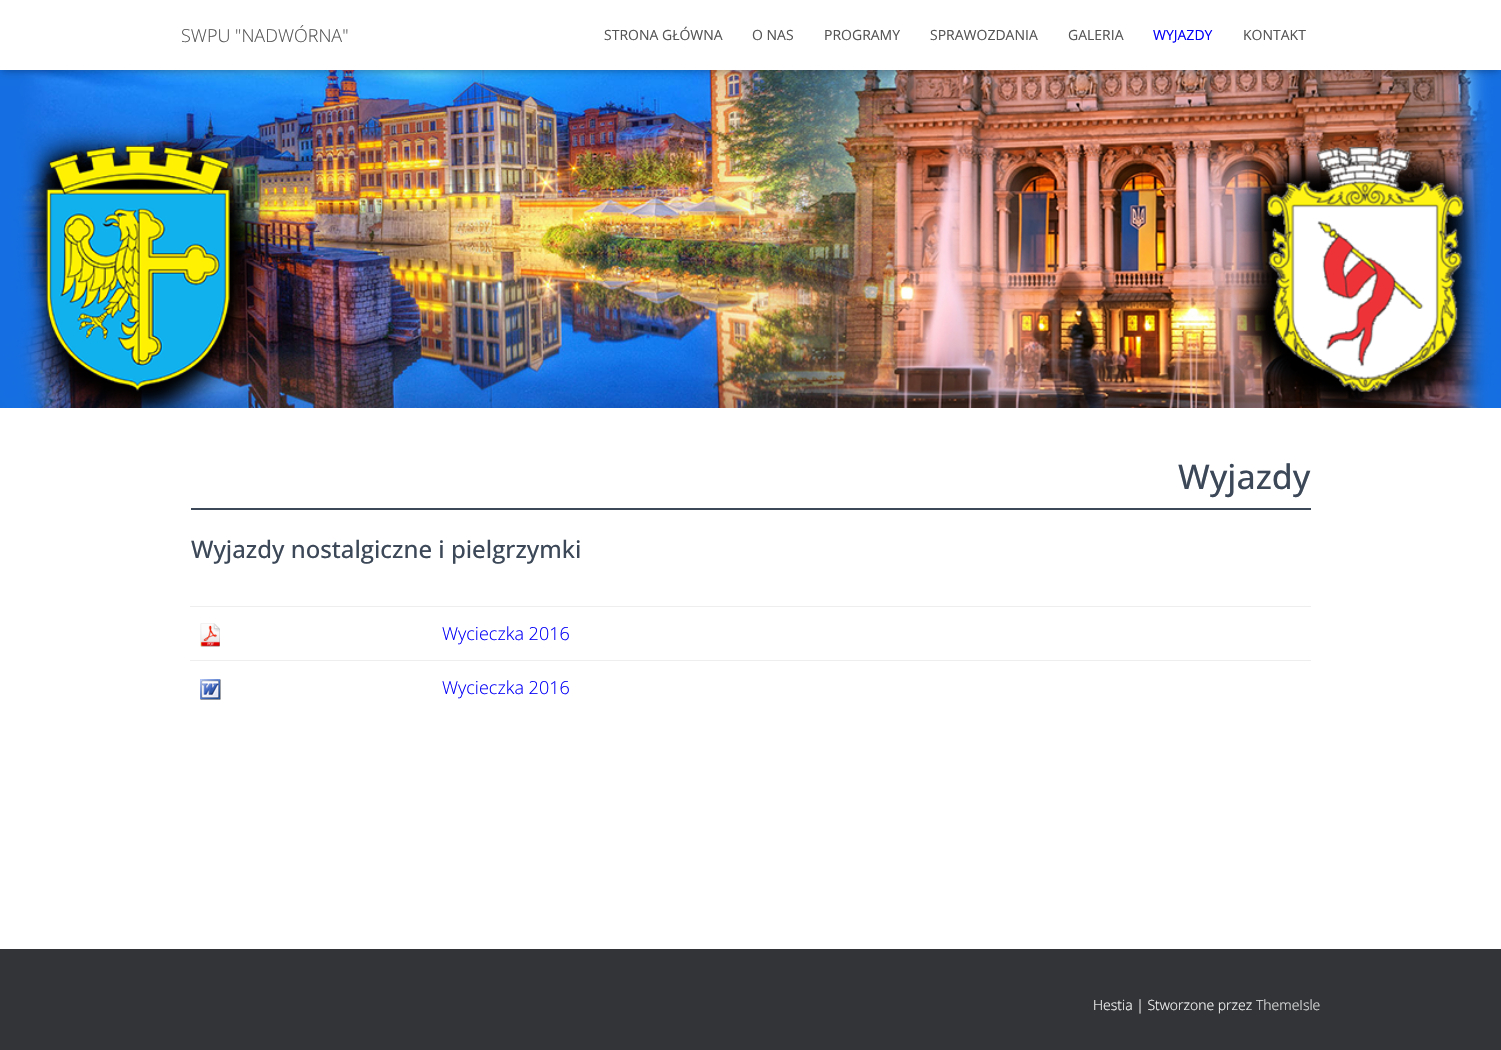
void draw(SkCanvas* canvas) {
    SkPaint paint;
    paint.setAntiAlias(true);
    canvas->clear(0xFFFFFFFF);
    canvas->drawImageRect(SkImages::DeferredFromEncodedData(SkData::MakeFromFileName("img1.png")), SkRect::MakeXYWH(0, 70, 1501, 338), SkSamplingOptions());
    paint.setColor(0x1A000000);
    paint.setMaskFilter(SkMaskFilter::MakeBlur(kNormal_SkBlurStyle, 2.5f));
    canvas->drawRect(SkRect::MakeXYWH(2, 6, 1497, 66), paint);
    paint.setMaskFilter(nullptr);
    paint.setColor(0x1F000000);
    paint.setMaskFilter(SkMaskFilter::MakeBlur(kNormal_SkBlurStyle, 5));
    canvas->drawRect(SkRect::MakeXYWH(0, 1, 1501, 70), paint);
    paint.setMaskFilter(nullptr);
    paint.setColor(0x6B000000);
    paint.setMaskFilter(SkMaskFilter::MakeBlur(kNormal_SkBlurStyle, 5));
    canvas->drawRect(SkRect::MakeXYWH(6, 7, 1489, 58), paint);
    paint.setMaskFilter(nullptr);
    paint.setColor(0xFFFFFFFF);
    canvas->drawRect(SkRect::MakeXYWH(0, 0, 1501, 70), paint);
    SkFont font1(fontMgr->matchFamilyStyle("Open Sans", SkFontStyle(300, SkFontStyle::kNormal_Width, SkFontStyle::kUpright_Slant)), 18);
    font1.setSubpixel(true);
    paint.setColor(0xFF555555);
    canvas->drawString("SWPU \"NADWÓRNA\"", 181, 42, font1, paint);
    SkFont font2(fontMgr->matchFamilyStyle("Open Sans", SkFontStyle::Normal()), 14);
    font2.setSubpixel(true);
    canvas->drawString("STRONA GŁÓWNA", 604, 40, font2, paint);
    canvas->drawString("O NAS", 752, 40, font2, paint);
    canvas->drawString("PROGRAMY", 824, 40, font2, paint);
    canvas->drawString("SPRAWOZDANIA", 930, 40, font2, paint);
    canvas->drawString("GALERIA", 1068, 40, font2, paint);
    paint.setColor(0xFF0400F7);
    canvas->drawString("WYJAZDY", 1153, 40, font2, paint);
    paint.setColor(0xFF555555);
    canvas->drawString("KONTAKT", 1243, 40, font2, paint);
    paint.setColor(0xFF3C4858);
    canvas->drawRect(SkRect::MakeXYWH(191, 508, 1120, 2), paint);
    SkFont font3(fontMgr->matchFamilyStyle("Open Sans", SkFontStyle(500, SkFontStyle::kNormal_Width, SkFontStyle::kUpright_Slant)), 34);
    font3.setSubpixel(true);
    canvas->drawString("Wyjazdy", 1178, 489, font3, paint);
    SkFont font4(fontMgr->matchFamilyStyle("Open Sans", SkFontStyle(500, SkFontStyle::kNormal_Width, SkFontStyle::kUpright_Slant)), 24);
    font4.setSubpixel(true);
    canvas->drawString("Wyjazdy nostalgiczne i pielgrzymki", 191, 558, font4, paint);
    paint.setColor(0xFFEEEEEE);
    canvas->drawRect(SkRect::MakeXYWH(190, 606, 1121, 1), paint);
    canvas->drawRect(SkRect::MakeXYWH(190, 660, 1121, 1), paint);
    canvas->drawImageRect(SkImages::DeferredFromEncodedData(SkData::MakeFromFileName("img2.png")), SkRect::MakeXYWH(200, 623, 20, 24), SkSamplingOptions());
    paint.setColor(0xFF0400F7);
    canvas->drawString("Wycieczka 2016", 442, 640, font1, paint);
    canvas->drawImageRect(SkImages::DeferredFromEncodedData(SkData::MakeFromFileName("img3.png")), SkRect::MakeXYWH(200, 679, 21, 21), SkSamplingOptions());
    canvas->drawString("Wycieczka 2016", 442, 694, font1, paint);
    paint.setColor(0xFF323437);
    canvas->drawRect(SkRect::MakeXYWH(0, 949, 1501, 101), paint);
    SkFont font5(fontMgr->matchFamilyStyle("Open Sans", SkFontStyle(300, SkFontStyle::kNormal_Width, SkFontStyle::kUpright_Slant)), 14);
    font5.setSubpixel(true);
    paint.setColor(0xFFFFFFFF);
    canvas->drawString("Hestia | Stworzone przez", 1093, 1010, font5, paint);
    paint.setColor(0xFFE2E3E3);
    canvas->drawString("ThemeIsle", 1256, 1010, font5, paint);
}
